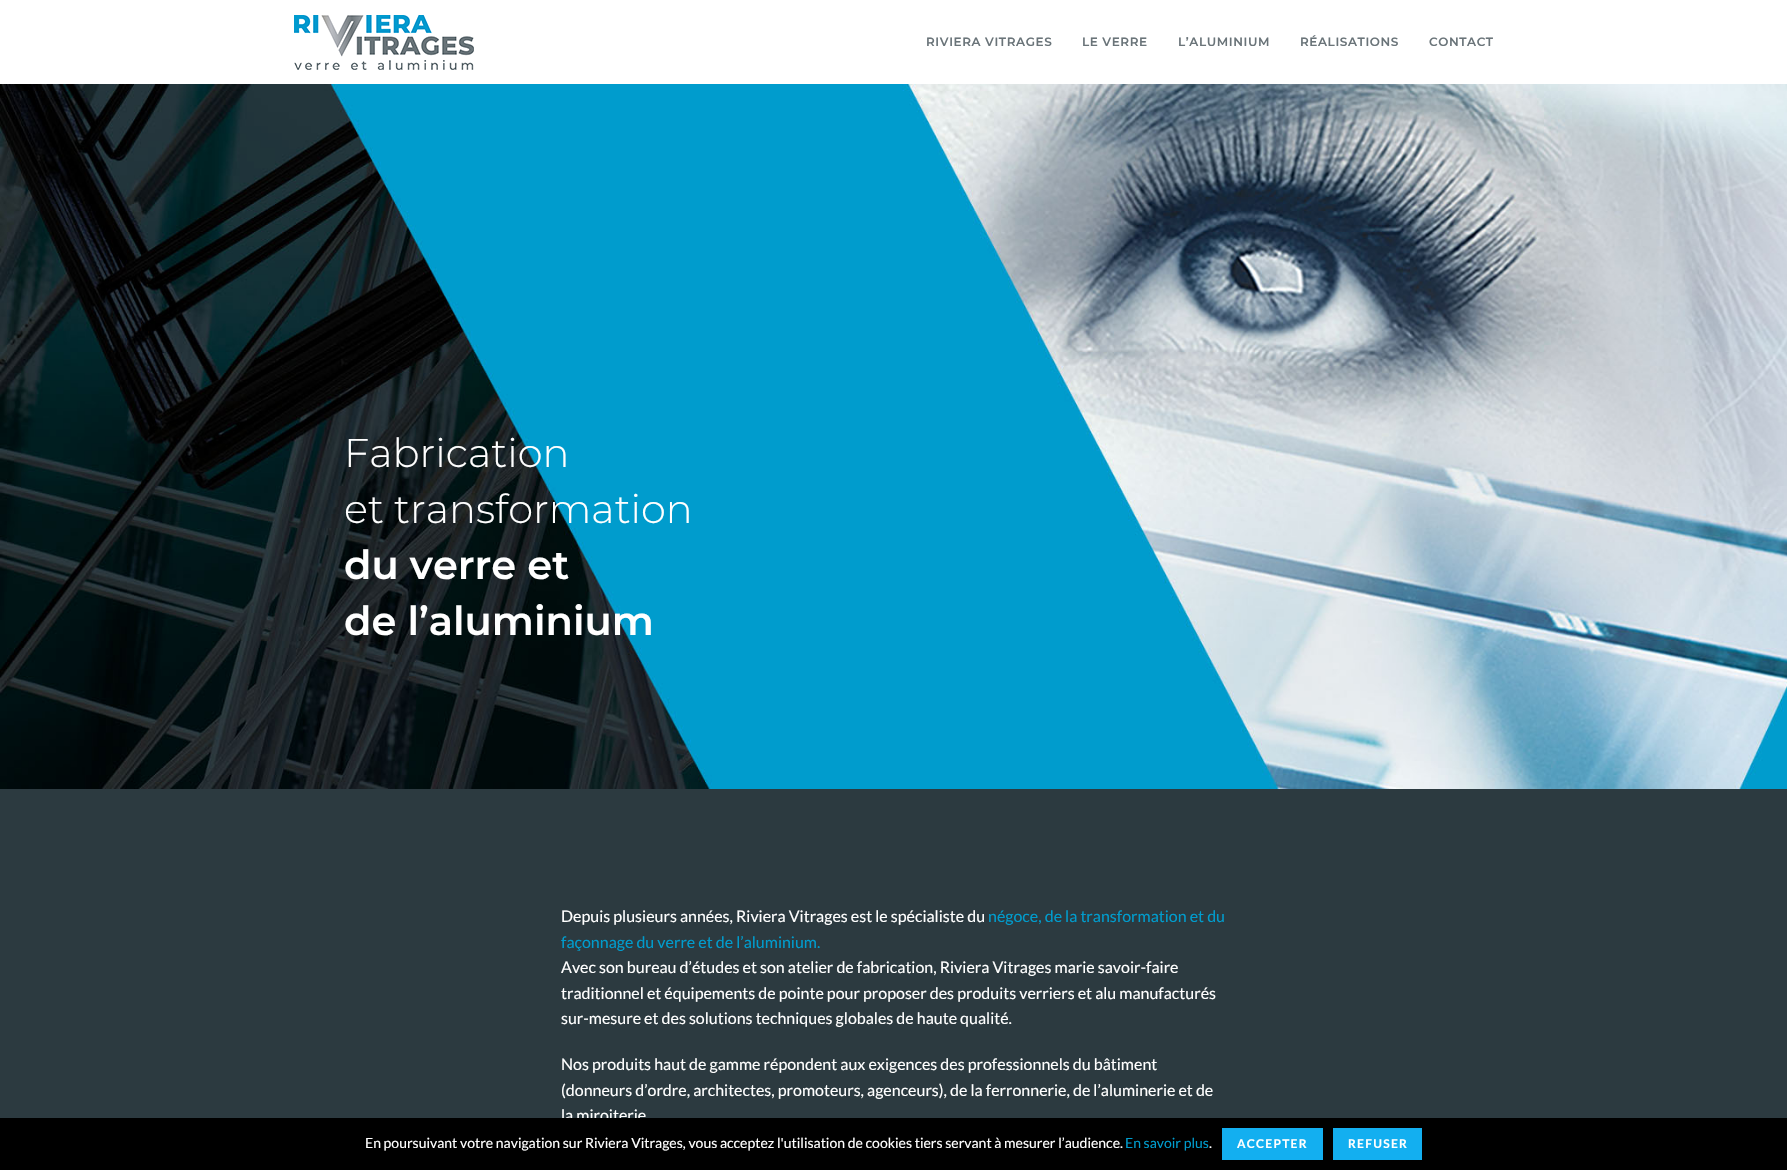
void draw(SkCanvas* canvas) {
    SkPaint paint;
    paint.setAntiAlias(true);
    auto spacedText = [&](const char* s, float x, float y, const SkFont& font, const SkPaint& ink, float letter, float word) {
        std::vector<SkGlyphID> glyphs(font.countText(s, strlen(s), SkTextEncoding::kUTF8));
        std::vector<float> xs(glyphs.size());
        font.textToGlyphs(s, strlen(s), SkTextEncoding::kUTF8, glyphs);
        font.getXPos(glyphs, xs, x);
        float extra = 0;
        for (size_t i = 0; i < glyphs.size(); i++) {
            xs[i] += extra;
            extra += letter + word * (glyphs[i] == font.unicharToGlyph(' '));
        }
        canvas->drawTextBlob(SkTextBlob::MakeFromPosHGlyphs(glyphs, xs, y, font), 0, 0, ink);
    };
    canvas->clear(0xFFFFFFFF);
    canvas->drawImageRect(SkImages::DeferredFromEncodedData(SkData::MakeFromFileName("img1.png")), SkRect::MakeXYWH(294, 15, 180, 55), SkSamplingOptions());
    SkFont font1(fontMgr->matchFamilyStyle("Montserrat", SkFontStyle(600, SkFontStyle::kNormal_Width, SkFontStyle::kUpright_Slant)), 12);
    font1.setSubpixel(true);
    paint.setColor(0xFF6A7479);
    spacedText("RIVIERA VITRAGES", 926, 46, font1, paint, 0.6f, 0);
    spacedText("LE VERRE", 1082, 46, font1, paint, 0.6f, 0);
    spacedText("L’ALUMINIUM", 1178, 46, font1, paint, 0.6f, 0);
    spacedText("RÉALISATIONS", 1300, 46, font1, paint, 0.6f, 0);
    spacedText("CONTACT", 1429, 46, font1, paint, 0.6f, 0);
    canvas->drawImageRect(SkImages::DeferredFromEncodedData(SkData::MakeFromFileName("img2.png")), SkRect::MakeXYWH(0, 84, 1787, 705), SkSamplingOptions());
    SkFont font2(fontMgr->matchFamilyStyle("Montserrat", SkFontStyle(300, SkFontStyle::kNormal_Width, SkFontStyle::kUpright_Slant)), 40);
    font2.setSubpixel(true);
    paint.setColor(0xFFFFFFFF);
    canvas->drawString("Fabrication", 344, 467, font2, paint);
    canvas->drawString("et transformation", 344, 523, font2, paint);
    SkFont font3(fontMgr->matchFamilyStyle("Montserrat", SkFontStyle(600, SkFontStyle::kNormal_Width, SkFontStyle::kUpright_Slant)), 40);
    font3.setSubpixel(true);
    canvas->drawString("du verre et", 344, 579, font3, paint);
    canvas->drawString("de l’aluminium", 344, 635, font3, paint);
    paint.setColor(0xFF2C3A40);
    canvas->drawRect(SkRect::MakeXYWH(0, 789, 1787, 329), paint);
    SkFont font4(fontMgr->matchFamilyStyle("Lato", SkFontStyle::Normal()), 16);
    font4.setSubpixel(true);
    paint.setColor(0xFFFFFFFF);
    canvas->drawString("Depuis plusieurs années, Riviera Vitrages est le spécialiste du", 561, 922, font4, paint);
    paint.setColor(0xFF009CCD);
    canvas->drawString("négoce, de la transformation et du", 988, 922, font4, paint);
    canvas->drawString("façonnage du verre et de l’aluminium.", 561, 948, font4, paint);
    paint.setColor(0xFFFFFFFF);
    canvas->drawString("Avec son bureau d’études et son atelier de fabrication, Riviera Vitrages marie savoir-faire", 561, 973, font4, paint);
    canvas->drawString("traditionnel et équipements de pointe pour proposer des produits verriers et alu manufacturés", 561, 999, font4, paint);
    canvas->drawString("sur-mesure et des solutions techniques globales de haute qualité.", 561, 1024, font4, paint);
    canvas->drawString("Nos produits haut de gamme répondent aux exigences des professionnels du bâtiment", 561, 1070, font4, paint);
    canvas->drawString("(donneurs d’ordre, architectes, promoteurs, agenceurs), de la ferronnerie, de l’aluminerie et de", 561, 1096, font4, paint);
    canvas->drawString("la miroiterie", 561, 1121, font4, paint);
    paint.setColor(0xFF000000);
    canvas->drawRect(SkRect::MakeXYWH(0, 1118, 1787, 52), paint);
    SkFont font5(fontMgr->matchFamilyStyle("Lato", SkFontStyle::Normal()), 14);
    font5.setSubpixel(true);
    paint.setColor(0xFFFFFFFF);
    canvas->drawString("En poursuivant votre navigation sur Riviera Vitrages, vous acceptez l'utilisation de cookies tiers servant à mesurer l’audience.", 365, 1148, font5, paint);
    paint.setColor(0xFF009CCD);
    canvas->drawString("En savoir plus", 1125, 1148, font5, paint);
    paint.setColor(0xFFFFFFFF);
    canvas->drawString(".", 1209, 1148, font5, paint);
    paint.setColor(0xFF13AFF0);
    canvas->drawRect(SkRect::MakeXYWH(1222, 1128, 101, 32), paint);
    SkFont font6(fontMgr->matchFamilyStyle("Lato", SkFontStyle::Bold()), 12);
    font6.setSubpixel(true);
    paint.setColor(0xFFFFFFFF);
    spacedText("ACCEPTER", 1237, 1148, font6, paint, 1.25f, 0);
    paint.setColor(0xFF13AFF0);
    canvas->drawRect(SkRect::MakeXYWH(1333, 1128, 89, 32), paint);
    paint.setColor(0xFFFFFFFF);
    spacedText("REFUSER", 1348, 1148, font6, paint, 1.25f, 0);
}
